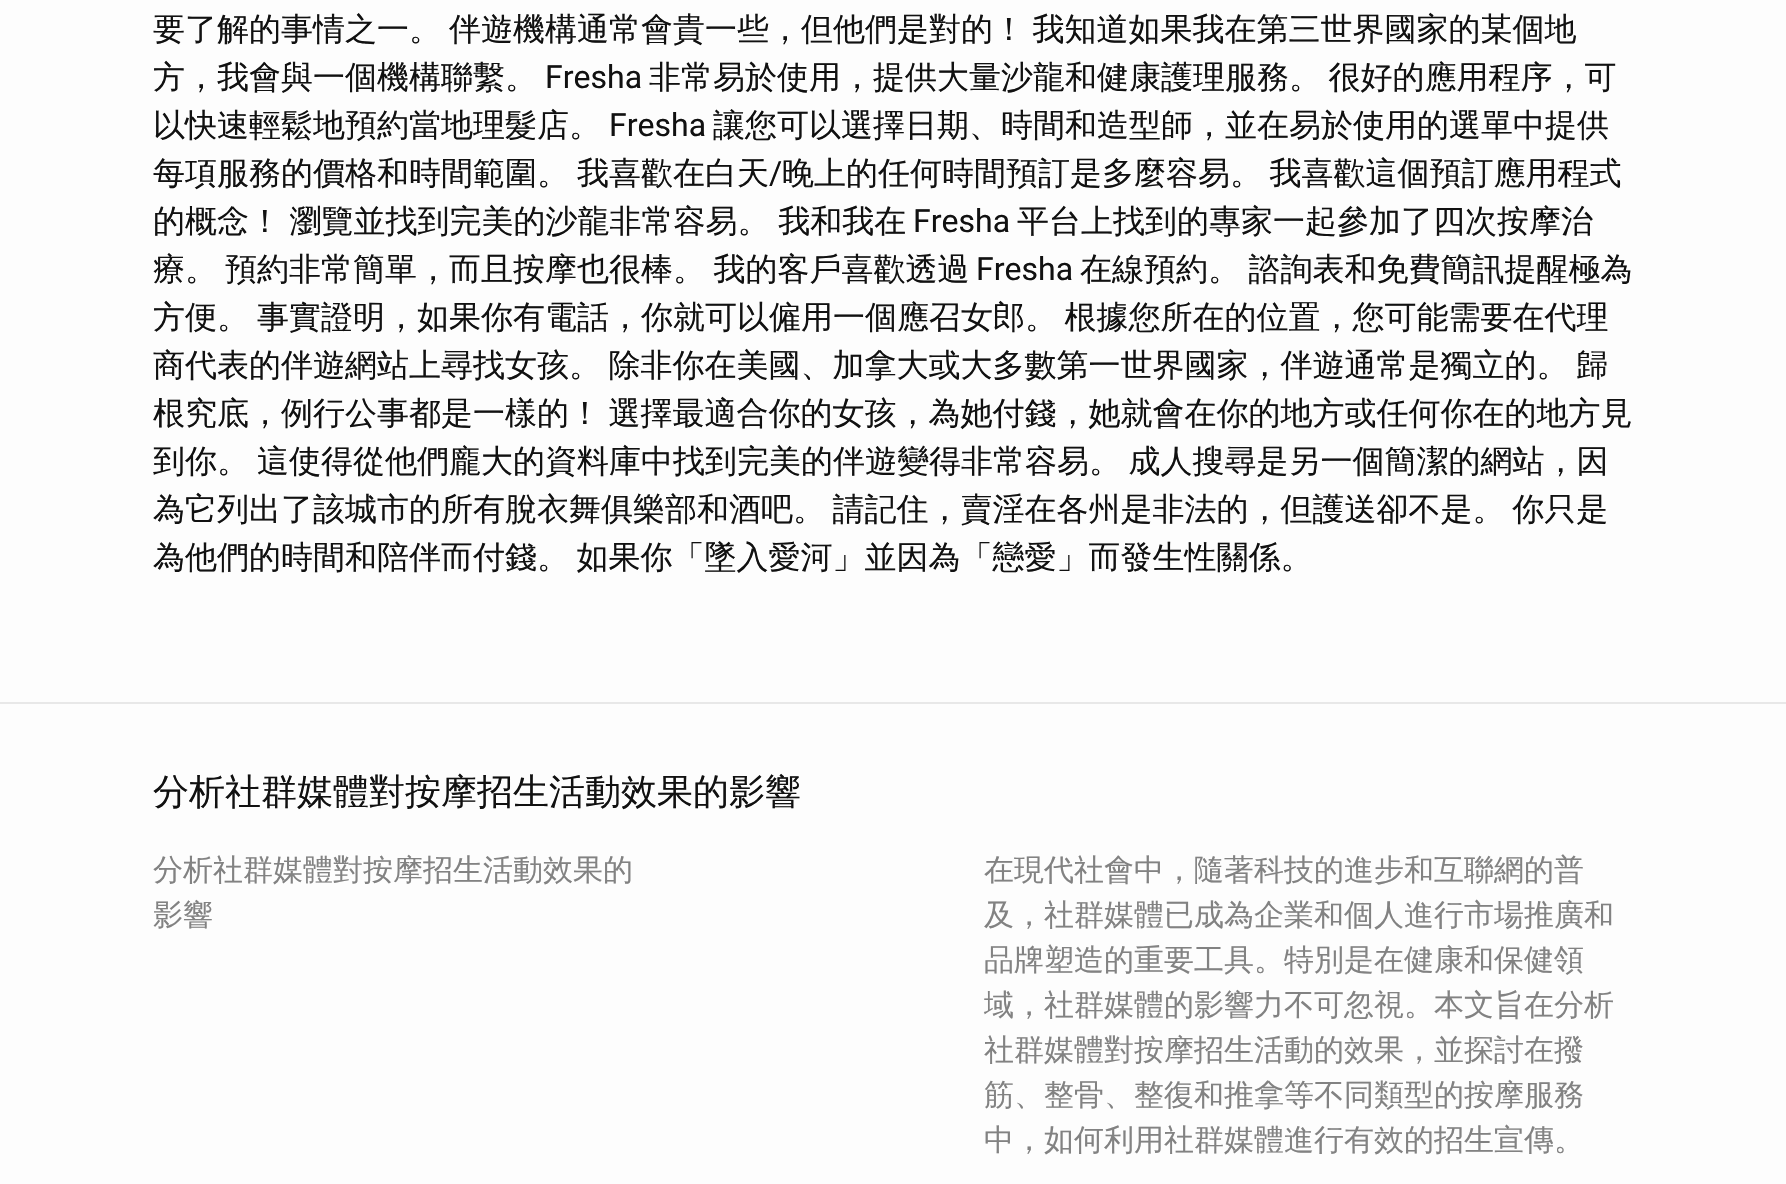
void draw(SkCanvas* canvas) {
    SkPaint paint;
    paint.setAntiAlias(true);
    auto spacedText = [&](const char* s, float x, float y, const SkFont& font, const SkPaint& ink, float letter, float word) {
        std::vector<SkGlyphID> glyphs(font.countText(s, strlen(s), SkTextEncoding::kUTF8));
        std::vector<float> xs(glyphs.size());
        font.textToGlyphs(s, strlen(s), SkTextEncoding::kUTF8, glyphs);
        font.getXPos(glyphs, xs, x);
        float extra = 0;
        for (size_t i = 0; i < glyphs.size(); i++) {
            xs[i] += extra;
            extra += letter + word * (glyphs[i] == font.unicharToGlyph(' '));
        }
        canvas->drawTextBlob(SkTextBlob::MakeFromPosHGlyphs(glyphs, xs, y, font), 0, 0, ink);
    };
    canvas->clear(0xFFFDFDFD);
    SkFont font1(fontMgr->matchFamilyStyle("WenQuanYi Zen Hei", SkFontStyle(500, SkFontStyle::kNormal_Width, SkFontStyle::kUpright_Slant)), 32);
    font1.setSubpixel(true);
    paint.setColor(0xFF111111);
    canvas->drawString("要了解的事情之一。", 153, 40, font1, paint);
    spacedText("伴遊機構通常會貴一些，但他們是對的！ 我知道如果我在第三世界國家的某個地", 449, 40, font1, paint, 0, -2);
    canvas->drawString("方，我會與一個機構聯繫。", 153, 88, font1, paint);
    SkFont font2(fontMgr->matchFamilyStyle("Roboto", SkFontStyle::Normal()), 32);
    font2.setSubpixel(true);
    canvas->drawString("Fresha", 545, 88, font2, paint);
    spacedText("非常易於使用，提供大量沙龍和健康護理服務。 很好的應用程序，可", 649, 88, font1, paint, 0, -2);
    canvas->drawString("以快速輕鬆地預約當地理髮店。", 153, 136, font1, paint);
    canvas->drawString("Fresha", 609, 136, font2, paint);
    canvas->drawString("讓您可以選擇日期、時間和造型師，並在易於使用的選單中提供", 713, 136, font1, paint);
    canvas->drawString("每項服務的價格和時間範圍。", 153, 184, font1, paint);
    canvas->drawString("我喜歡在白天", 577, 184, font1, paint);
    canvas->drawString("/", 769, 184, font2, paint);
    spacedText("晚上的任何時間預訂是多麼容易。 我喜歡這個預訂應用程式", 782, 184, font1, paint, 0, -2);
    spacedText("的概念！ 瀏覽並找到完美的沙龍非常容易。 我和我在", 153, 232, font1, paint, 0, -1);
    canvas->drawString("Fresha", 913, 232, font2, paint);
    canvas->drawString("平台上找到的專家一起參加了四次按摩治", 1017, 232, font1, paint);
    canvas->drawString("療。", 153, 280, font1, paint);
    spacedText("預約非常簡單，而且按摩也很棒。 我的客戶喜歡透過", 225, 280, font1, paint, 0, -1);
    canvas->drawString("Fresha", 976, 280, font2, paint);
    spacedText("在線預約。 諮詢表和免費簡訊提醒極為", 1080, 280, font1, paint, 0, -1);
    canvas->drawString("方便。", 153, 328, font1, paint);
    spacedText("事實證明，如果你有電話，你就可以僱用一個應召女郎。 根據您所在的位置，您可能需要在代理", 257, 328, font1, paint, 0, -2);
    spacedText("商代表的伴遊網站上尋找女孩。 除非你在美國、加拿大或大多數第一世界國家，伴遊通常是獨立的。 歸", 153, 376, font1, paint, 0, -2);
    spacedText("根究底，例行公事都是一樣的！ 選擇最適合你的女孩，為她付錢，她就會在你的地方或任何你在的地方見", 153, 424, font1, paint, 0, -2);
    canvas->drawString("到你。", 153, 472, font1, paint);
    spacedText("這使得從他們龐大的資料庫中找到完美的伴遊變得非常容易。 成人搜尋是另一個簡潔的網站，因", 257, 472, font1, paint, 0, -2);
    spacedText("為它列出了該城市的所有脫衣舞俱樂部和酒吧。 請記住，賣淫在各州是非法的，但護送卻不是。 你只是", 153, 520, font1, paint, 0, -2);
    spacedText("為他們的時間和陪伴而付錢。 如果你「墜入愛河」並因為「戀愛」而發生性關係。", 153, 568, font1, paint, 0, -2);
    paint.setColor(0xFFE8E8E8);
    canvas->drawRect(SkRect::MakeXYWH(0, 702, 1786, 2), paint);
    SkFont font3(fontMgr->matchFamilyStyle("WenQuanYi Zen Hei", SkFontStyle(500, SkFontStyle::kNormal_Width, SkFontStyle::kUpright_Slant)), 36);
    font3.setSubpixel(true);
    paint.setColor(0xFF111111);
    canvas->drawString("分析社群媒體對按摩招生活動效果的影響", 153, 804, font3, paint);
    SkFont font4(fontMgr->matchFamilyStyle("WenQuanYi Zen Hei", SkFontStyle(500, SkFontStyle::kNormal_Width, SkFontStyle::kUpright_Slant)), 30);
    font4.setSubpixel(true);
    paint.setColor(0xFF828282);
    canvas->drawString("分析社群媒體對按摩招生活動效果的", 153, 880, font4, paint);
    canvas->drawString("影響", 153, 925, font4, paint);
    canvas->drawString("在現代社會中，隨著科技的進步和互聯網的普", 984, 880, font4, paint);
    canvas->drawString("及，社群媒體已成為企業和個人進行市場推廣和", 984, 925, font4, paint);
    canvas->drawString("品牌塑造的重要工具。特別是在健康和保健領", 984, 970, font4, paint);
    canvas->drawString("域，社群媒體的影響力不可忽視。本文旨在分析", 984, 1015, font4, paint);
    canvas->drawString("社群媒體對按摩招生活動的效果，並探討在撥", 984, 1060, font4, paint);
    canvas->drawString("筋、整骨、整復和推拿等不同類型的按摩服務", 984, 1105, font4, paint);
    canvas->drawString("中，如何利用社群媒體進行有效的招生宣傳。", 984, 1150, font4, paint);
}
